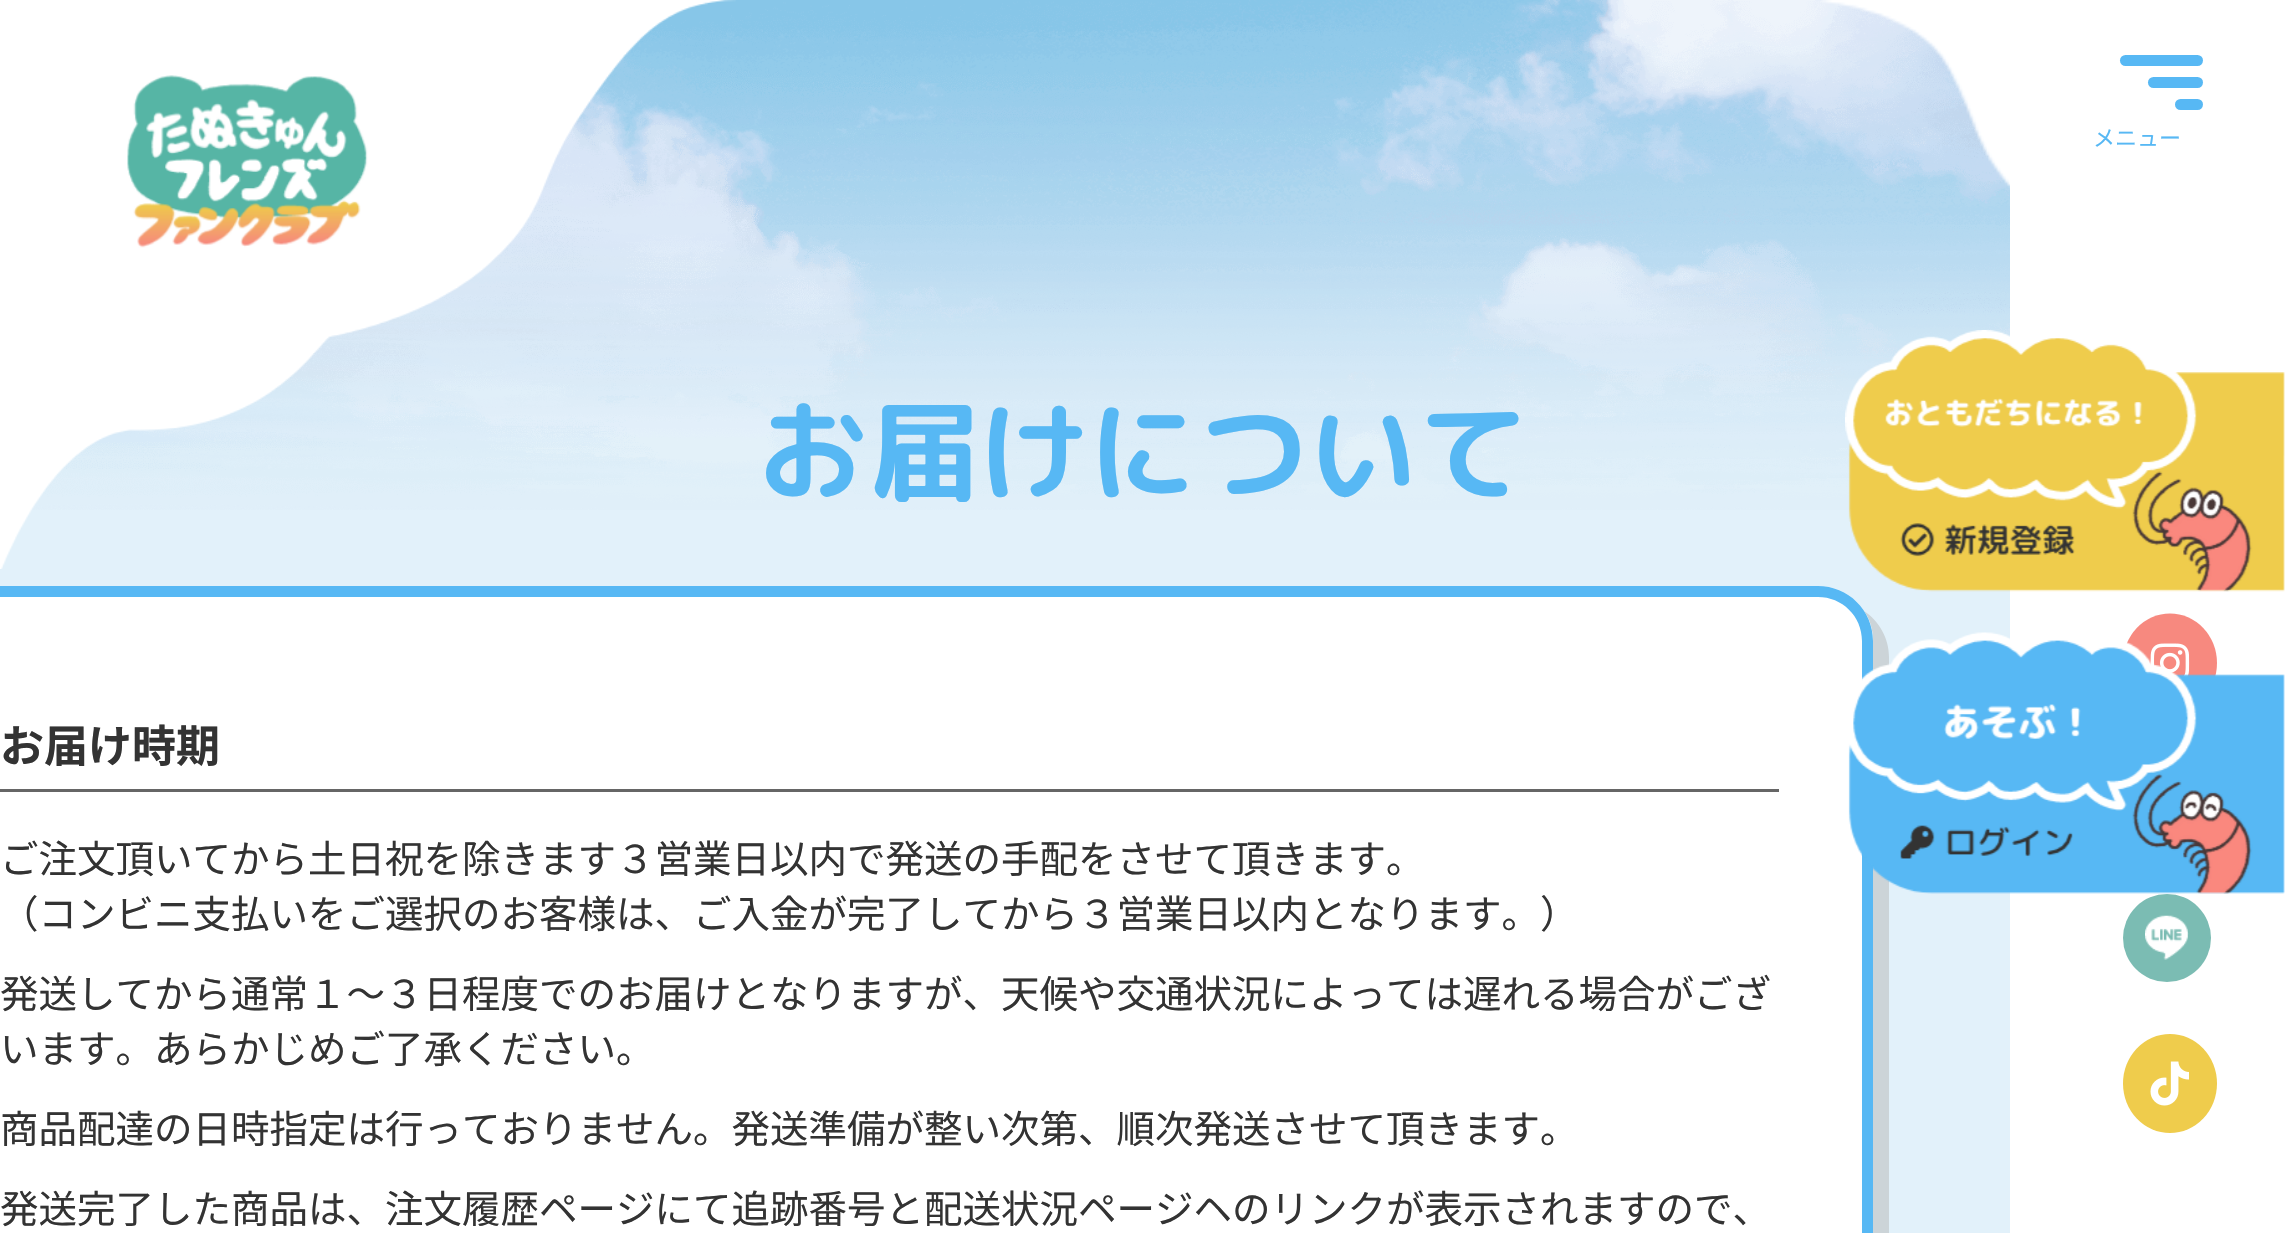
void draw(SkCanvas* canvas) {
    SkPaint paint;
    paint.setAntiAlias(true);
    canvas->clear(0xFFE2F1FA);
    canvas->drawImageRect(SkImages::DeferredFromEncodedData(SkData::MakeFromFileName("img1.png")), SkRect::MakeXYWH(30, 0, 1980, 510), SkSamplingOptions());
    canvas->drawImageRect(SkImages::DeferredFromEncodedData(SkData::MakeFromFileName("img2.png")), SkRect::MakeXYWH(0, 0, 736, 569), SkSamplingOptions());
    canvas->drawImageRect(SkImages::DeferredFromEncodedData(SkData::MakeFromFileName("img3.png")), SkRect::MakeXYWH(127, 75, 241, 173), SkSamplingOptions());
    paint.setColor(0xFFFFFFFF);
    canvas->drawRect(SkRect::MakeXYWH(2010, 0, 275, 1233), paint);
    paint.setColor(0xFFF7897F);
    canvas->drawOval(SkRect::MakeXYWH(2123, 613.5f, 94, 99), paint);
    canvas->drawImageRect(SkImages::DeferredFromEncodedData(SkData::MakeFromFileName("img4.png")), SkRect::MakeXYWH(2150, 643, 40, 34), SkSamplingOptions());
    paint.setColor(0xFF7BBCB3);
    canvas->drawCircle(2167, 938, 44, paint);
    canvas->drawImageRect(SkImages::DeferredFromEncodedData(SkData::MakeFromFileName("img5.png")), SkRect::MakeXYWH(2145, 915, 44, 45), SkSamplingOptions());
    paint.setColor(0xFFEFCC4C);
    canvas->drawOval(SkRect::MakeXYWH(2123, 1034, 94, 99), paint);
    canvas->drawImageRect(SkImages::DeferredFromEncodedData(SkData::MakeFromFileName("img6.png")), SkRect::MakeXYWH(2150, 1061, 39, 45), SkSamplingOptions());
    canvas->drawImageRect(SkImages::DeferredFromEncodedData(SkData::MakeFromFileName("img7.png")), SkRect::MakeXYWH(1821, 0, 189, 189), SkSamplingOptions());
    paint.setColor(0xFF57B8F4);
    canvas->drawRoundRect(SkRect::MakeXYWH(2120, 55, 83, 11), 5.5f, 5.5f, paint);
    canvas->drawRoundRect(SkRect::MakeXYWH(2148, 77, 55, 11), 5.5f, 5.5f, paint);
    canvas->drawRoundRect(SkRect::MakeXYWH(2175, 99, 28, 11), 5.5f, 5.5f, paint);
    SkFont font1(fontMgr->matchFamilyStyle("Noto Sans JP", SkFontStyle::Normal()), 22);
    font1.setSubpixel(true);
    canvas->drawString("メニュー", 2093, 146, font1, paint);
    SkFont font2(fontMgr->matchFamilyStyle("Rounded Mplus 1c Bold", SkFontStyle::Bold()), 110);
    font2.setSubpixel(true);
    canvas->drawString("お届けについて", 758, 492, font2, paint);
    paint.setColor(0xFFCCD4D8);
    canvas->drawPath(SkPathBuilder().moveTo(17, 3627).lineTo(17, 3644).lineTo(1834, 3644).cubicTo(1864, 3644, 1889, 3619, 1889, 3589).lineTo(1889, 657).cubicTo(1889, 638, 1879, 621, 1864, 611).cubicTo(1870, 619, 1873, 630, 1873, 641).lineTo(1873, 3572).cubicTo(1873, 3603, 1848, 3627, 1818, 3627).close().detach(), paint);
    paint.setColor(0xFFFFFFFF);
    canvas->drawPath(SkPathBuilder().moveTo(0, 586).lineTo(1818, 586).cubicTo(1848.5f, 586, 1873, 610.5f, 1873, 641).lineTo(1873, 1233).cubicTo(1873, 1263.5f, 1848.5f, 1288, 1818, 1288).lineTo(0, 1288).close().detach(), paint);
    paint.setColor(0xFF57B8F4);
    canvas->drawPath(SkPathBuilder(SkPathFillType::kEvenOdd).moveTo(0, 586).lineTo(1818, 586).cubicTo(1848, 586, 1873, 610, 1873, 641).lineTo(1873, 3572).cubicTo(1873, 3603, 1848, 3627, 1818, 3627).lineTo(0, 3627).close().moveTo(0, 597).lineTo(1818, 597).cubicTo(1842, 597, 1862, 616, 1862, 641).lineTo(1862, 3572).cubicTo(1862, 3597, 1842, 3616, 1818, 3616).lineTo(0, 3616).close().detach(), paint);
    paint.setColor(0xFF666666);
    canvas->drawRect(SkRect::MakeXYWH(0, 789, 1779, 3), paint);
    SkFont font3(fontMgr->matchFamilyStyle("Noto Sans JP", SkFontStyle::Bold()), 44);
    font3.setSubpixel(true);
    paint.setColor(0xFF333333);
    canvas->drawString("お届け時期", 0, 762, font3, paint);
    SkFont font4(fontMgr->matchFamilyStyle("Noto Sans JP", SkFontStyle::Normal()), 38.5f);
    font4.setSubpixel(true);
    canvas->drawString("ご注文頂いてから土日祝を除きます３営業日以内で発送の手配をさせて頂きます。", 0, 873, font4, paint);
    canvas->drawString("（コンビニ支払いをご選択のお客様は、ご入金が完了してから３営業日以内となります。）", 0, 928, font4, paint);
    canvas->drawString("発送してから通常１～３日程度でのお届けとなりますが、天候や交通状況によっては遅れる場合がござ", 0, 1008, font4, paint);
    canvas->drawString("います。あらかじめご了承ください。", 0, 1063, font4, paint);
    canvas->drawString("商品配達の日時指定は行っておりません。発送準備が整い次第、順次発送させて頂きます。", 0, 1143, font4, paint);
    canvas->drawString("発送完了した商品は、注文履歴ページにて追跡番号と配送状況ページヘのリンクが表示されますので、", 0, 1223, font4, paint);
    canvas->drawImageRect(SkImages::DeferredFromEncodedData(SkData::MakeFromFileName("img8.png")), SkRect::MakeXYWH(1845, 330, 440, 262), SkSamplingOptions());
    canvas->drawImageRect(SkImages::DeferredFromEncodedData(SkData::MakeFromFileName("img9.png")), SkRect::MakeXYWH(1848, 632, 437, 262), SkSamplingOptions());
}
